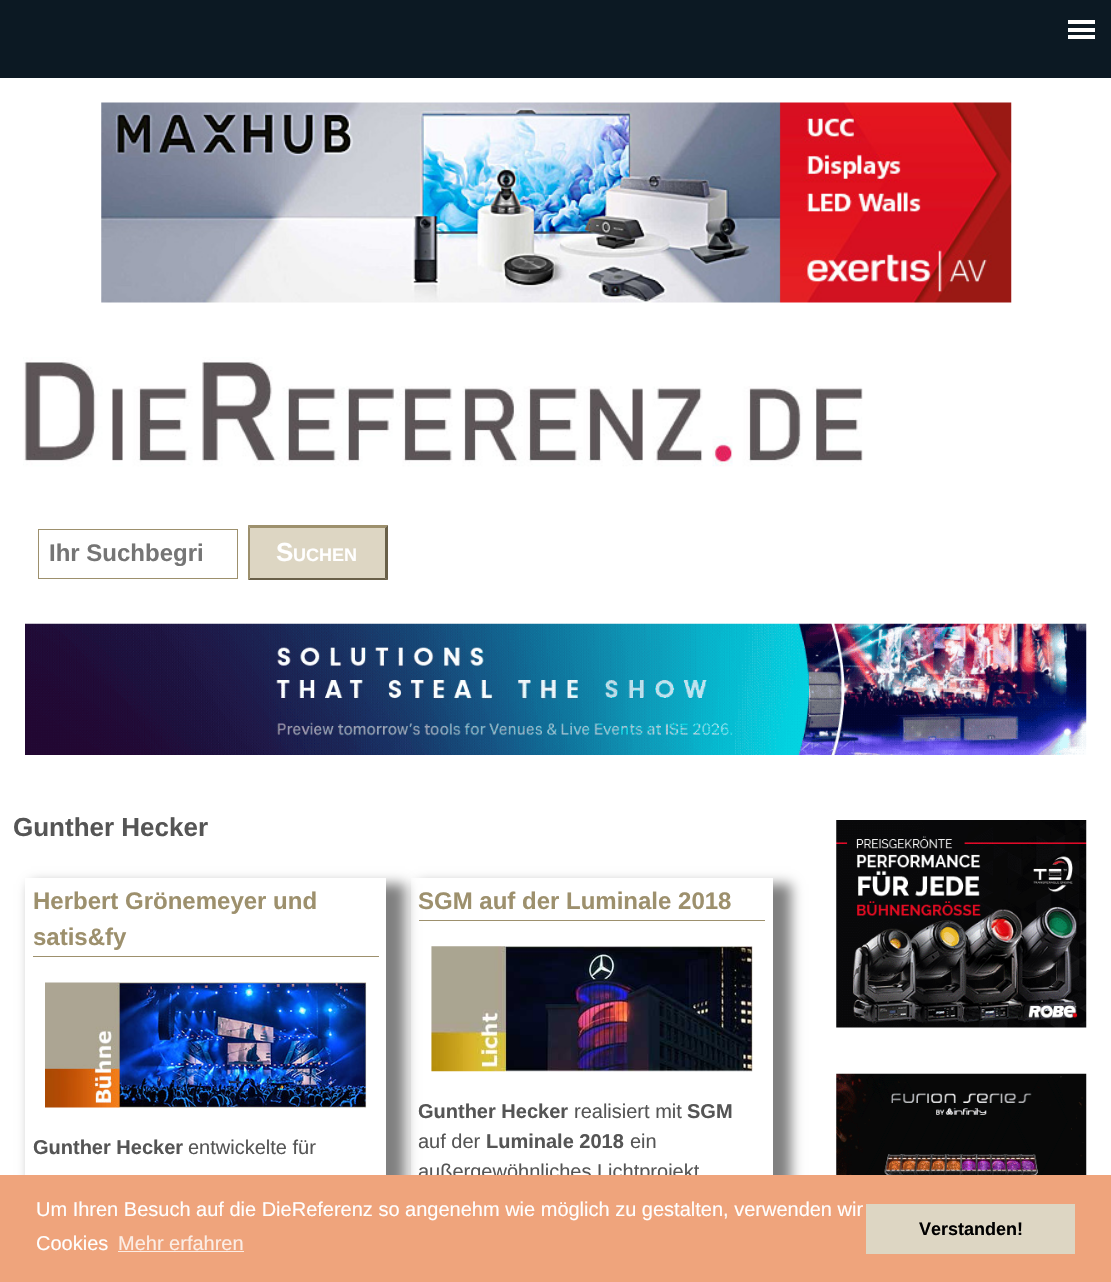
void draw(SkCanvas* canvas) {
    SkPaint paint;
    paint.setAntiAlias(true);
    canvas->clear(0xFFFFFFFF);
    paint.setColor(0xFF0C1923);
    canvas->drawRect(SkRect::MakeXYWH(0, 0, 1111, 78), paint);
    paint.setColor(0xFFFFFFFF);
    canvas->drawRect(SkRect::MakeXYWH(1068, 20, 27, 4), paint);
    canvas->drawRect(SkRect::MakeXYWH(1068, 28, 27, 4), paint);
    canvas->drawRect(SkRect::MakeXYWH(1068, 35, 27, 4), paint);
    canvas->drawImageRect(SkImages::DeferredFromEncodedData(SkData::MakeFromFileName("img1.png")), SkRect::MakeXYWH(101, 102, 911, 201), SkSamplingOptions());
    canvas->drawImageRect(SkImages::DeferredFromEncodedData(SkData::MakeFromFileName("img2.png")), SkRect::MakeXYWH(23, 357, 840, 110), SkSamplingOptions());
    paint.setStyle(SkPaint::kStroke_Style);
    paint.setStrokeWidth(1);
    paint.setColor(0xFF9D906D);
    canvas->drawRect(SkRect::MakeXYWH(38.5f, 529.5f, 199, 49), paint);
    SkFont font1(fontMgr->matchFamilyStyle("Liberation Sans", SkFontStyle::Bold()), 24);
    font1.setSubpixel(true);
    paint.setStyle(SkPaint::kFill_Style);
    paint.setColor(0xFF757575);
    canvas->drawString("Ihr Suchbegri", 49, 561, font1, paint);
    paint.setColor(0xFFDDD6C3);
    canvas->drawRect(SkRect::MakeXYWH(248, 525, 140, 55), paint);
    paint.setColor(0xFF9D906D);
    canvas->drawPath(SkPathBuilder().moveTo(248, 525).lineTo(388, 525).lineTo(385, 528).lineTo(250, 528).close().detach(), paint);
    paint.setColor(0xFF696049);
    canvas->drawPath(SkPathBuilder().moveTo(388, 525).lineTo(388, 580).lineTo(385, 578).lineTo(385, 528).close().detach(), paint);
    canvas->drawPath(SkPathBuilder().moveTo(388, 580).lineTo(248, 580).lineTo(250, 578).lineTo(385, 578).close().detach(), paint);
    paint.setColor(0xFF9D906D);
    canvas->drawPath(SkPathBuilder().moveTo(248, 580).lineTo(248, 525).lineTo(250, 528).lineTo(250, 578).close().detach(), paint);
    SkFont font2(fontMgr->matchFamilyStyle("Liberation Sans", SkFontStyle::Bold()), 26);
    font2.setSubpixel(true);
    paint.setColor(0xFFFFFFFF);
    canvas->drawString("S", 276, 561, font2, paint);
    SkFont font3(fontMgr->matchFamilyStyle("Liberation Sans", SkFontStyle::Bold()), 18);
    font3.setSubpixel(true);
    canvas->drawString("UCHEN", 293, 561, font3, paint);
    canvas->drawImageRect(SkImages::DeferredFromEncodedData(SkData::MakeFromFileName("img3.png")), SkRect::MakeXYWH(25, 623, 1062, 132), SkSamplingOptions());
    paint.setColor(0xFF555555);
    canvas->drawString("Gunther Hecker", 13, 836, font2, paint);
    canvas->save();
    canvas->clipPath(SkPathBuilder(SkPathFillType::kEvenOdd).moveTo(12, 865).lineTo(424, 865).lineTo(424, 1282).lineTo(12, 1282).close().moveTo(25, 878).lineTo(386, 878).lineTo(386, 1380).lineTo(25, 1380).close().detach(), true);
    paint.setColor(0xFF808080);
    paint.setMaskFilter(SkMaskFilter::MakeBlur(kNormal_SkBlurStyle, 6));
    canvas->drawRect(SkRect::MakeXYWH(31, 884, 374, 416), paint);
    paint.setMaskFilter(nullptr);
    canvas->restore();
    paint.setColor(0xFF9D906D);
    canvas->drawRect(SkRect::MakeXYWH(33, 956, 346, 1), paint);
    canvas->drawString("Herbert Grönemeyer und", 33, 909, font1, paint);
    canvas->drawString("satis&fy", 33, 945, font1, paint);
    canvas->drawImageRect(SkImages::DeferredFromEncodedData(SkData::MakeFromFileName("img4.png")), SkRect::MakeXYWH(45, 982, 322, 126), SkSamplingOptions());
    SkFont font4(fontMgr->matchFamilyStyle("Liberation Sans", SkFontStyle::Bold()), 20);
    font4.setSubpixel(true);
    paint.setColor(0xFF555555);
    canvas->drawString("Gunther Hecker", 33, 1154, font4, paint);
    SkFont font5(fontMgr->matchFamilyStyle("Liberation Sans", SkFontStyle::Normal()), 20);
    font5.setSubpixel(true);
    canvas->drawString("entwickelte für", 188, 1154, font5, paint);
    canvas->save();
    canvas->clipPath(SkPathBuilder(SkPathFillType::kEvenOdd).moveTo(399, 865).lineTo(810, 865).lineTo(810, 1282).lineTo(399, 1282).close().moveTo(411, 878).lineTo(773, 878).lineTo(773, 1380).lineTo(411, 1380).close().detach(), true);
    paint.setColor(0xFF808080);
    paint.setMaskFilter(SkMaskFilter::MakeBlur(kNormal_SkBlurStyle, 6));
    canvas->drawRect(SkRect::MakeXYWH(418, 884, 373, 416), paint);
    paint.setMaskFilter(nullptr);
    canvas->restore();
    paint.setColor(0xFF9D906D);
    canvas->drawRect(SkRect::MakeXYWH(419, 920, 346, 1), paint);
    canvas->drawString("SGM auf der Luminale 2018", 418, 909, font1, paint);
    canvas->drawImageRect(SkImages::DeferredFromEncodedData(SkData::MakeFromFileName("img5.png")), SkRect::MakeXYWH(431, 946, 322, 126), SkSamplingOptions());
    paint.setColor(0xFF555555);
    canvas->drawString("Gunther Hecker", 418, 1118, font4, paint);
    canvas->drawString("realisiert mit", 574, 1118, font5, paint);
    canvas->drawString("SGM", 687, 1118, font4, paint);
    canvas->drawString("auf der", 418, 1148, font5, paint);
    canvas->drawString("Luminale 2018", 486, 1148, font4, paint);
    canvas->drawString("ein", 630, 1148, font5, paint);
    canvas->drawString("außergewöhnliches Lichtprojekt", 418, 1178, font5, paint);
    canvas->drawImageRect(SkImages::DeferredFromEncodedData(SkData::MakeFromFileName("img6.png")), SkRect::MakeXYWH(836, 820, 251, 208), SkSamplingOptions());
    canvas->drawImageRect(SkImages::DeferredFromEncodedData(SkData::MakeFromFileName("img7.png")), SkRect::MakeXYWH(836, 1073, 251, 102), SkSamplingOptions());
    paint.setColor(0xFFEFA47C);
    canvas->drawRect(SkRect::MakeXYWH(0, 1175, 1111, 107), paint);
    paint.setColor(0xFFFFFFFF);
    canvas->drawString("Um Ihren Besuch auf die DieReferenz so angenehm wie möglich zu gestalten, verwenden wir", 36, 1216, font5, paint);
    canvas->drawString("Cookies", 36, 1250, font5, paint);
    paint.setColor(0xFFFCEDE5);
    canvas->drawString("Mehr erfahren", 118, 1250, font5, paint);
    canvas->drawRect(SkRect::MakeXYWH(118, 1251, 126, 1), paint);
    paint.setColor(0xFFDDD6C3);
    canvas->drawRect(SkRect::MakeXYWH(866, 1204, 209, 50), paint);
    paint.setColor(0xFF000000);
    canvas->drawString("Verstanden!", 919, 1235, font3, paint);
}
